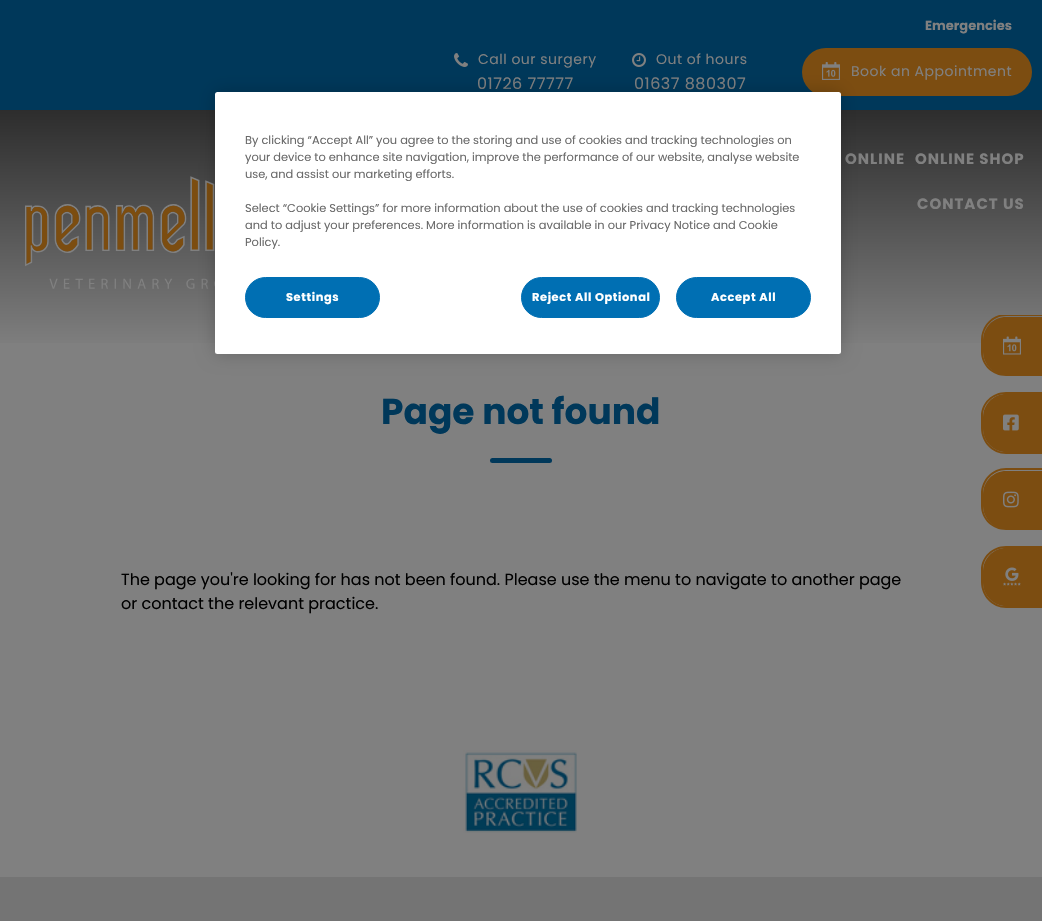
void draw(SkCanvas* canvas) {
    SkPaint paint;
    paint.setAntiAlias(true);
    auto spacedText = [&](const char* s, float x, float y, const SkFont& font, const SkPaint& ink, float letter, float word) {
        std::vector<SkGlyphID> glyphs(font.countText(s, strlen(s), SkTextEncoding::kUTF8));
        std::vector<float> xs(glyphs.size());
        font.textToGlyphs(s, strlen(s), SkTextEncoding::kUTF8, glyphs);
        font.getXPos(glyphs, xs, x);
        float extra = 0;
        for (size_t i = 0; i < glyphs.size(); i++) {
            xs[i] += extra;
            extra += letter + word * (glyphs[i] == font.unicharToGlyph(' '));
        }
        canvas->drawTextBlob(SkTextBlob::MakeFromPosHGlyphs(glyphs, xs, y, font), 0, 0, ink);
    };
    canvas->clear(0xFF808080);
    paint.setColor(0xFF00385A);
    canvas->drawRect(SkRect::MakeXYWH(0, 0, 1042, 110), paint);
    SkFont font1(fontMgr->matchFamilyStyle("Poppins", SkFontStyle::Bold()), 13);
    font1.setSubpixel(true);
    paint.setColor(0xFF808080);
    canvas->drawString("Emergencies", 925, 30, font1, paint);
    canvas->drawImageRect(SkImages::DeferredFromEncodedData(SkData::MakeFromFileName("img1.png")), SkRect::MakeXYWH(454, 53, 14, 14), SkSamplingOptions());
    SkFont font2(fontMgr->matchFamilyStyle("Poppins", SkFontStyle::Normal()), 14);
    font2.setSubpixel(true);
    spacedText("Call our surgery", 478, 64, font2, paint, 0.5f, 0);
    SkFont font3(fontMgr->matchFamilyStyle("Poppins", SkFontStyle::Normal()), 16);
    font3.setSubpixel(true);
    spacedText("01726 77777", 477, 89, font3, paint, 0.5f, 0);
    canvas->drawImageRect(SkImages::DeferredFromEncodedData(SkData::MakeFromFileName("img2.png")), SkRect::MakeXYWH(632, 53, 14, 14), SkSamplingOptions());
    spacedText("Out of hours", 656, 64, font2, paint, 0.5f, 0);
    spacedText("01637 880307", 634, 89, font3, paint, 0.5f, 0);
    paint.setColor(0xFF7C4D11);
    canvas->drawRoundRect(SkRect::MakeXYWH(802, 48, 230, 48), 24, 24, paint);
    canvas->drawImageRect(SkImages::DeferredFromEncodedData(SkData::MakeFromFileName("img3.png")), SkRect::MakeXYWH(822, 62, 18, 18), SkSamplingOptions());
    paint.setColor(0xFF808080);
    spacedText("Book an Appointment", 851, 76, font2, paint, 0.5f, 0);
    {
        const SkColor colors[] = {0xFF2D2D2D, 0xFF808080};
        const float stops[] = {0, 1};
        const SkPoint ends[] = {{521, 110}, {521, 350}};
        paint.setShader(SkGradientShader::MakeLinear(ends, colors, stops, 2, SkTileMode::kClamp));
        paint.setAlpha(255);
    }
    canvas->drawRect(SkRect::MakeXYWH(0, 110, 1042, 233), paint);
    canvas->drawImageRect(SkImages::DeferredFromEncodedData(SkData::MakeFromFileName("img4.png")), SkRect::MakeXYWH(25, 176, 190, 113), SkSamplingOptions());
    SkFont font4(fontMgr->matchFamilyStyle("Poppins", SkFontStyle::Bold()), 15);
    font4.setSubpixel(true);
    paint.setShader(nullptr);
    paint.setColor(0xFF808080);
    spacedText("ONLINE", 845, 164, font4, paint, 1, 0);
    spacedText("ONLINE SHOP", 915, 164, font4, paint, 1, 0);
    spacedText("CONTACT US", 917, 209, font4, paint, 1, 0);
    SkFont font5(fontMgr->matchFamilyStyle("Poppins", SkFontStyle::Bold()), 36);
    font5.setSubpixel(true);
    paint.setColor(0xFF00385A);
    canvas->drawString("Page not found", 381, 424, font5, paint);
    canvas->drawRoundRect(SkRect::MakeXYWH(490, 458, 62, 5), 2.5f, 2.5f, paint);
    paint.setColor(0xFF000000);
    canvas->drawString("The page you're looking for has not been found. Please use the menu to navigate to another page", 121, 585, font3, paint);
    canvas->drawString("or contact the relevant practice.", 121, 609, font3, paint);
    paint.setColor(0xFF7C4D11);
    canvas->drawPath(SkPathBuilder().moveTo(1006, 317).lineTo(1042, 317).lineTo(1042, 375).lineTo(1006, 375).cubicTo(993.5f, 375, 983, 364.5f, 983, 352).lineTo(983, 340).cubicTo(983, 327.5f, 993.5f, 317, 1006, 317).close().detach(), paint);
    canvas->save();
    canvas->clipRect(SkRect::MakeXYWH(981, 315, 61, 293));
    canvas->drawPath(SkPathBuilder(SkPathFillType::kEvenOdd).moveTo(1006, 314).lineTo(1042, 314).lineTo(1042, 376).lineTo(1006, 376).cubicTo(992, 376, 981, 365, 981, 352).lineTo(981, 340).cubicTo(981, 326, 992, 314, 1006, 314).close().moveTo(1006, 316).lineTo(1042, 316).lineTo(1042, 374).lineTo(1006, 374).cubicTo(993, 374, 983, 364, 983, 352).lineTo(983, 340).cubicTo(983, 327, 993, 316, 1006, 316).close().detach(), paint);
    canvas->restore();
    canvas->drawImageRect(SkImages::DeferredFromEncodedData(SkData::MakeFromFileName("img5.png")), SkRect::MakeXYWH(1003, 336, 18, 19), SkSamplingOptions());
    canvas->drawPath(SkPathBuilder().moveTo(1006, 394).lineTo(1042, 394).lineTo(1042, 452).lineTo(1006, 452).cubicTo(993.5f, 452, 983, 441.5f, 983, 429).lineTo(983, 417).cubicTo(983, 404.5f, 993.5f, 394, 1006, 394).close().detach(), paint);
    canvas->drawPath(SkPathBuilder(SkPathFillType::kEvenOdd).moveTo(1006, 392).lineTo(1042, 392).lineTo(1042, 454).lineTo(1006, 454).cubicTo(992, 454, 981, 442, 981, 428).lineTo(981, 416).cubicTo(981, 403, 992, 392, 1006, 392).close().moveTo(1006, 394).lineTo(1042, 394).lineTo(1042, 452).lineTo(1006, 452).cubicTo(993, 452, 983, 441, 983, 428).lineTo(983, 416).cubicTo(983, 404, 993, 394, 1006, 394).close().detach(), paint);
    canvas->drawImageRect(SkImages::DeferredFromEncodedData(SkData::MakeFromFileName("img6.png")), SkRect::MakeXYWH(1003, 414, 16, 17), SkSamplingOptions());
    canvas->drawPath(SkPathBuilder().moveTo(1006, 471).lineTo(1042, 471).lineTo(1042, 529).lineTo(1006, 529).cubicTo(993.5f, 529, 983, 518.5f, 983, 506).lineTo(983, 494).cubicTo(983, 481.5f, 993.5f, 471, 1006, 471).close().detach(), paint);
    canvas->drawPath(SkPathBuilder(SkPathFillType::kEvenOdd).moveTo(1006, 468).lineTo(1042, 468).lineTo(1042, 530).lineTo(1006, 530).cubicTo(992, 530, 981, 519, 981, 506).lineTo(981, 494).cubicTo(981, 480, 992, 468, 1006, 468).close().moveTo(1006, 470).lineTo(1042, 470).lineTo(1042, 528).lineTo(1006, 528).cubicTo(993, 528, 983, 518, 983, 506).lineTo(983, 494).cubicTo(983, 481, 993, 470, 1006, 470).close().detach(), paint);
    canvas->drawImageRect(SkImages::DeferredFromEncodedData(SkData::MakeFromFileName("img7.png")), SkRect::MakeXYWH(1003, 491, 16, 17), SkSamplingOptions());
    canvas->drawPath(SkPathBuilder().moveTo(1006, 548).lineTo(1042, 548).lineTo(1042, 606).lineTo(1006, 606).cubicTo(993.5f, 606, 983, 595.5f, 983, 583).lineTo(983, 571).cubicTo(983, 558.5f, 993.5f, 548, 1006, 548).close().detach(), paint);
    canvas->drawPath(SkPathBuilder(SkPathFillType::kEvenOdd).moveTo(1006, 546).lineTo(1042, 546).lineTo(1042, 608).lineTo(1006, 608).cubicTo(992, 608, 981, 596, 981, 582).lineTo(981, 570).cubicTo(981, 557, 992, 546, 1006, 546).close().moveTo(1006, 548).lineTo(1042, 548).lineTo(1042, 606).lineTo(1006, 606).cubicTo(993, 606, 983, 595, 983, 582).lineTo(983, 570).cubicTo(983, 558, 993, 548, 1006, 548).close().detach(), paint);
    canvas->drawImageRect(SkImages::DeferredFromEncodedData(SkData::MakeFromFileName("img8.png")), SkRect::MakeXYWH(1003, 567, 18, 19), SkSamplingOptions());
    canvas->drawImageRect(SkImages::DeferredFromEncodedData(SkData::MakeFromFileName("img9.png")), SkRect::MakeXYWH(463, 750, 114, 83), SkSamplingOptions());
    paint.setColor(0xFF747474);
    canvas->drawRect(SkRect::MakeXYWH(0, 877, 1042, 44), paint);
    paint.setColor(0x33000000);
    paint.setMaskFilter(SkMaskFilter::MakeBlur(kNormal_SkBlurStyle, 9));
    canvas->drawRoundRect(SkRect::MakeXYWH(215, 92, 626, 262), 2.5f, 2.5f, paint);
    paint.setMaskFilter(nullptr);
    paint.setColor(0xFFFFFFFF);
    canvas->drawRoundRect(SkRect::MakeXYWH(215, 92, 626, 262), 2.5f, 2.5f, paint);
    SkFont font6(fontMgr->matchFamilyStyle("Poppins", SkFontStyle::Normal()), 11.4f);
    font6.setSubpixel(true);
    paint.setColor(0xFF696969);
    canvas->drawString("By clicking “Accept All” you agree to the storing and use of cookies and tracking technologies on", 245, 144, font6, paint);
    canvas->drawString("your device to enhance site navigation, improve the performance of our website, analyse website", 245, 161, font6, paint);
    canvas->drawString("use, and assist our marketing efforts.", 245, 178, font6, paint);
    canvas->drawString("Select “Cookie Settings” for more information about the use of cookies and tracking technologies", 245, 212, font6, paint);
    canvas->drawString("and to adjust your preferences. More information is available in our Privacy Notice and Cookie", 245, 229, font6, paint);
    canvas->drawString("Policy.", 245, 246, font6, paint);
    paint.setColor(0xFF006FB3);
    canvas->drawRoundRect(SkRect::MakeXYWH(245.5f, 277.5f, 134, 40), 20, 20, paint);
    paint.setStyle(SkPaint::kStroke_Style);
    paint.setStrokeWidth(1);
    canvas->drawRoundRect(SkRect::MakeXYWH(245.5f, 277.5f, 134, 40), 20, 20, paint);
    SkFont font7(fontMgr->matchFamilyStyle("Poppins", SkFontStyle::Bold()), 11.4f);
    font7.setSubpixel(true);
    paint.setStyle(SkPaint::kFill_Style);
    paint.setColor(0xFFFFFFFF);
    spacedText("Settings", 286, 301, font7, paint, 0.6f, 0);
    paint.setColor(0xFF006FB3);
    canvas->drawRoundRect(SkRect::MakeXYWH(521.5f, 277.5f, 138, 40), 20, 20, paint);
    paint.setStyle(SkPaint::kStroke_Style);
    canvas->drawRoundRect(SkRect::MakeXYWH(521.5f, 277.5f, 138, 40), 20, 20, paint);
    paint.setStyle(SkPaint::kFill_Style);
    paint.setColor(0xFFFFFFFF);
    spacedText("Reject All Optional", 532, 301, font7, paint, 0.6f, 0);
    paint.setColor(0xFF006FB3);
    canvas->drawRoundRect(SkRect::MakeXYWH(676.5f, 277.5f, 134, 40), 20, 20, paint);
    paint.setStyle(SkPaint::kStroke_Style);
    canvas->drawRoundRect(SkRect::MakeXYWH(676.5f, 277.5f, 134, 40), 20, 20, paint);
    paint.setStyle(SkPaint::kFill_Style);
    paint.setColor(0xFFFFFFFF);
    spacedText("Accept All", 711, 301, font7, paint, 0.6f, 0);
}
